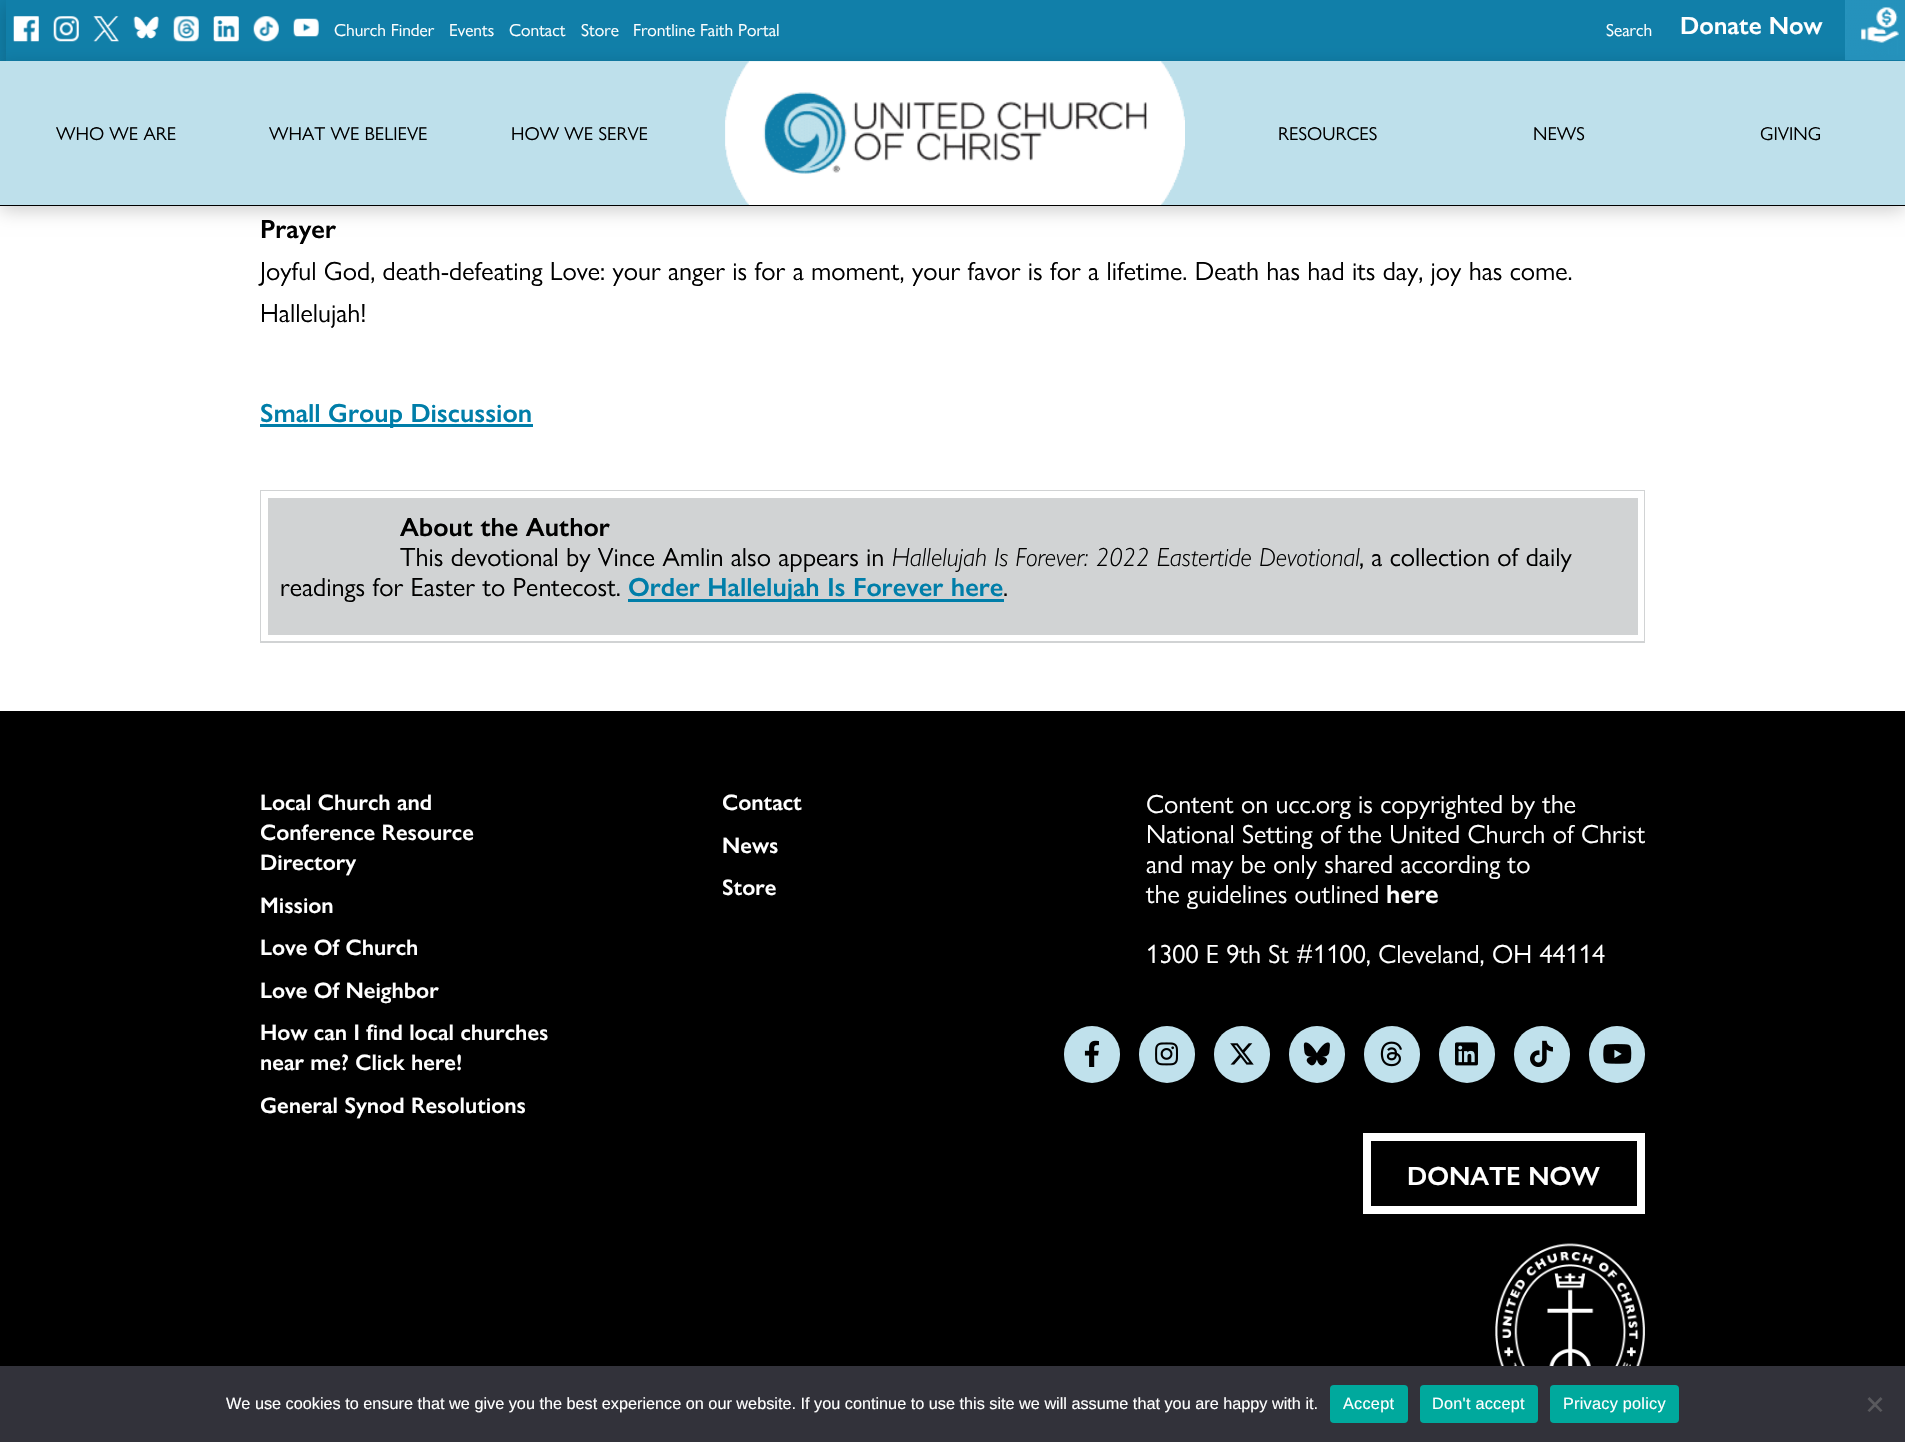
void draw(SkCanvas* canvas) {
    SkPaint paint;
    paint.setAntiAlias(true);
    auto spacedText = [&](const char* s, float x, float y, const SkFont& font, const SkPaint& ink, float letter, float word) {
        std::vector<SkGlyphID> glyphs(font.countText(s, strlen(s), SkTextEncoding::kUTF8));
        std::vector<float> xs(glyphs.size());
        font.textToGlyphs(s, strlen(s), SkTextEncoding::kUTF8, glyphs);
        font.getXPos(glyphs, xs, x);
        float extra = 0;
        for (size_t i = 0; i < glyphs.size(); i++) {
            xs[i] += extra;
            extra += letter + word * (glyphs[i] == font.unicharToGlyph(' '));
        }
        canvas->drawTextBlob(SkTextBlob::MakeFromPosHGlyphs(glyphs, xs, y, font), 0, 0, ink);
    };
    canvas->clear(0xFFFFFFFF);
    paint.setColor(0xFF117FA9);
    canvas->drawRect(SkRect::MakeXYWH(0, 0, 1905, 61), paint);
    canvas->save();
    canvas->clipPath(SkPathBuilder(SkPathFillType::kEvenOdd).moveTo(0, 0).lineTo(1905, 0).lineTo(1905, 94).lineTo(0, 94).close().moveTo(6, 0).lineTo(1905, 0).lineTo(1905, 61).lineTo(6, 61).close().detach(), true);
    paint.setColor(0x33000000);
    paint.setMaskFilter(SkMaskFilter::MakeBlur(kNormal_SkBlurStyle, 9));
    canvas->drawRect(SkRect::MakeXYWH(6, 5, 1899, 61), paint);
    paint.setMaskFilter(nullptr);
    canvas->restore();
    canvas->drawImageRect(SkImages::DeferredFromEncodedData(SkData::MakeFromFileName("img1.png")), SkRect::MakeXYWH(13, 16, 26, 26), SkSamplingOptions());
    canvas->drawImageRect(SkImages::DeferredFromEncodedData(SkData::MakeFromFileName("img2.png")), SkRect::MakeXYWH(53, 16, 26, 26), SkSamplingOptions());
    canvas->drawImageRect(SkImages::DeferredFromEncodedData(SkData::MakeFromFileName("img3.png")), SkRect::MakeXYWH(93, 16, 26, 26), SkSamplingOptions());
    canvas->drawImageRect(SkImages::DeferredFromEncodedData(SkData::MakeFromFileName("img4.png")), SkRect::MakeXYWH(133, 16, 26, 23), SkSamplingOptions());
    canvas->drawImageRect(SkImages::DeferredFromEncodedData(SkData::MakeFromFileName("img5.png")), SkRect::MakeXYWH(173, 16, 26, 26), SkSamplingOptions());
    canvas->drawImageRect(SkImages::DeferredFromEncodedData(SkData::MakeFromFileName("img6.png")), SkRect::MakeXYWH(213, 16, 26, 26), SkSamplingOptions());
    canvas->drawImageRect(SkImages::DeferredFromEncodedData(SkData::MakeFromFileName("img7.png")), SkRect::MakeXYWH(253, 16, 26, 26), SkSamplingOptions());
    canvas->drawImageRect(SkImages::DeferredFromEncodedData(SkData::MakeFromFileName("img8.png")), SkRect::MakeXYWH(293, 18, 26, 19), SkSamplingOptions());
    SkFont font1(fontMgr->matchFamilyStyle("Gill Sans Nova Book", SkFontStyle::Normal()), 17.5f);
    font1.setSubpixel(true);
    paint.setColor(0xFFFFFFFF);
    canvas->drawString("Church Finder", 334, 36, font1, paint);
    canvas->drawString("Events", 449, 36, font1, paint);
    canvas->drawString("Contact", 509, 36, font1, paint);
    canvas->drawString("Store", 581, 36, font1, paint);
    canvas->drawString("Frontline Faith Portal", 633, 36, font1, paint);
    canvas->drawString("Search", 1606, 36, font1, paint);
    SkFont font2(fontMgr->matchFamilyStyle("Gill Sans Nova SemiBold", SkFontStyle(600, SkFontStyle::kNormal_Width, SkFontStyle::kUpright_Slant)), 25);
    font2.setSubpixel(true);
    canvas->drawString("Donate Now", 1680, 34, font2, paint);
    paint.setColor(0xFFBEE0EB);
    canvas->drawRect(SkRect::MakeXYWH(0, 61, 1905, 144), paint);
    paint.setColor(0xFF000000);
    canvas->drawRect(SkRect::MakeXYWH(0, 205, 1905, 1), paint);
    canvas->save();
    canvas->clipPath(SkPathBuilder(SkPathFillType::kEvenOdd).moveTo(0, 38).lineTo(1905, 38).lineTo(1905, 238).lineTo(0, 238).close().moveTo(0, 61).lineTo(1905, 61).lineTo(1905, 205).lineTo(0, 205).close().detach(), true);
    paint.setColor(0x33000000);
    paint.setMaskFilter(SkMaskFilter::MakeBlur(kNormal_SkBlurStyle, 9));
    canvas->drawRect(SkRect::MakeXYWH(0, 66, 1905, 144), paint);
    paint.setMaskFilter(nullptr);
    canvas->restore();
    canvas->drawImageRect(SkImages::DeferredFromEncodedData(SkData::MakeFromFileName("img9.png")), SkRect::MakeXYWH(1845, 0, 60, 60), SkSamplingOptions());
    paint.setColor(0xFFBEE0EB);
    canvas->drawRect(SkRect::MakeXYWH(29, 61, 174, 1), paint);
    SkFont font3(fontMgr->matchFamilyStyle("Gill Sans Nova Book", SkFontStyle::Normal()), 18.75f);
    font3.setSubpixel(true);
    paint.setColor(0xFF000000);
    canvas->drawString("WHO WE ARE", 56, 140, font3, paint);
    paint.setColor(0xFFBEE0EB);
    canvas->drawRect(SkRect::MakeXYWH(260, 61, 174, 1), paint);
    paint.setColor(0xFF000000);
    canvas->drawString("WHAT WE BELIEVE", 269, 140, font3, paint);
    paint.setColor(0xFFBEE0EB);
    canvas->drawRect(SkRect::MakeXYWH(491, 61, 174, 1), paint);
    paint.setColor(0xFF000000);
    canvas->drawString("HOW WE SERVE", 511, 140, font3, paint);
    paint.setColor(0xFFBEE0EB);
    canvas->drawRect(SkRect::MakeXYWH(723, 61, 462, 1), paint);
    canvas->drawImageRect(SkImages::DeferredFromEncodedData(SkData::MakeFromFileName("img10.png")), SkRect::MakeXYWH(725, 61, 460, 144), SkSamplingOptions());
    canvas->drawRect(SkRect::MakeXYWH(1240, 61, 174, 1), paint);
    paint.setColor(0xFF000000);
    canvas->drawString("RESOURCES", 1278, 140, font3, paint);
    paint.setColor(0xFFBEE0EB);
    canvas->drawRect(SkRect::MakeXYWH(1471, 61, 174, 1), paint);
    paint.setColor(0xFF000000);
    canvas->drawString("NEWS", 1533, 140, font3, paint);
    paint.setColor(0xFFBEE0EB);
    canvas->drawRect(SkRect::MakeXYWH(1703, 61, 173, 1), paint);
    paint.setColor(0xFF000000);
    canvas->drawString("GIVING", 1760, 140, font3, paint);
    SkFont font4(fontMgr->matchFamilyStyle("Gill Sans Nova SemiBold", SkFontStyle(600, SkFontStyle::kNormal_Width, SkFontStyle::kUpright_Slant)), 26.25f);
    font4.setSubpixel(true);
    canvas->drawString("Prayer", 260, 238, font4, paint);
    SkFont font5(fontMgr->matchFamilyStyle("Gill Sans Nova Book", SkFontStyle::Normal()), 26.25f);
    font5.setSubpixel(true);
    canvas->drawString("Joyful God, death-defeating Love: your anger is for a moment, your favor is for a lifetime. Death has had its day, joy has come.", 260, 280, font5, paint);
    canvas->drawString("Hallelujah!", 260, 322, font5, paint);
    paint.setColor(0xFF007EA9);
    canvas->drawRect(SkRect::MakeXYWH(260, 424, 273, 3), paint);
    canvas->drawString("Small Group Discussion", 260, 422, font4, paint);
    paint.setColor(0xFFD1D3D4);
    canvas->drawRect(SkRect::MakeXYWH(260, 490, 1385, 153), paint);
    paint.setColor(0xFFFFFFFF);
    canvas->drawRect(SkRect::MakeXYWH(261, 491, 1383, 150), paint);
    paint.setColor(0xFFD1D3D4);
    canvas->drawRect(SkRect::MakeXYWH(268, 498, 1370, 137), paint);
    paint.setColor(0xFF000000);
    canvas->drawString("About the Author", 400, 536, font4, paint);
    canvas->drawString("This devotional by Vince Amlin also appears in", 400, 566, font5, paint);
    SkFont font6(fontMgr->matchFamilyStyle("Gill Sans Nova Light", SkFontStyle(300, SkFontStyle::kNormal_Width, SkFontStyle::kItalic_Slant)), 26.25f);
    font6.setSubpixel(true);
    canvas->drawString("Hallelujah Is Forever: 2022 Eastertide Devotional", 892, 566, font6, paint);
    canvas->drawString(", a collection of daily", 1359, 566, font5, paint);
    canvas->drawString("readings for Easter to Pentecost.", 280, 596, font5, paint);
    paint.setColor(0xFF007EA9);
    canvas->drawRect(SkRect::MakeXYWH(628, 599, 376, 3), paint);
    canvas->drawString("Order Hallelujah Is Forever here", 628, 596, font4, paint);
    paint.setColor(0xFF000000);
    canvas->drawString(".", 1003, 596, font5, paint);
    canvas->drawRect(SkRect::MakeXYWH(0, 711, 1905, 655), paint);
    SkFont font7(fontMgr->matchFamilyStyle("Gill Sans Nova SemiBold", SkFontStyle(600, SkFontStyle::kNormal_Width, SkFontStyle::kUpright_Slant)), 22.5f);
    font7.setSubpixel(true);
    paint.setColor(0xFFFFFFFF);
    canvas->drawString("Local Church and", 260, 810, font7, paint);
    canvas->drawString("Conference Resource", 260, 840, font7, paint);
    canvas->drawString("Directory", 260, 870, font7, paint);
    canvas->drawString("Mission", 260, 913, font7, paint);
    canvas->drawString("Love Of Church", 260, 955, font7, paint);
    canvas->drawString("Love Of Neighbor", 260, 998, font7, paint);
    canvas->drawString("How can I find local churches", 260, 1040, font7, paint);
    canvas->drawString("near me? Click here!", 260, 1070, font7, paint);
    canvas->drawString("General Synod Resolutions", 260, 1113, font7, paint);
    canvas->drawString("Contact", 722, 810, font7, paint);
    canvas->drawString("News", 722, 853, font7, paint);
    canvas->drawString("Store", 722, 895, font7, paint);
    canvas->drawString("Content on ucc.org is copyrighted by the", 1146, 813, font5, paint);
    canvas->drawString("National Setting of the United Church of Christ", 1146, 843, font5, paint);
    canvas->drawString("and may be only shared according to", 1146, 873, font5, paint);
    canvas->drawString("the guidelines outlined", 1146, 903, font5, paint);
    canvas->drawString("here", 1386, 903, font4, paint);
    canvas->drawString("1300 E 9th St #1100, Cleveland, OH 44114", 1146, 963, font5, paint);
    paint.setColor(0xFFC0E1EC);
    canvas->drawRoundRect(SkRect::MakeXYWH(1064, 1026, 56, 57), 28, 28, paint);
    canvas->drawImageRect(SkImages::DeferredFromEncodedData(SkData::MakeFromFileName("img11.png")), SkRect::MakeXYWH(1084, 1040, 15, 27), SkSamplingOptions());
    canvas->drawRoundRect(SkRect::MakeXYWH(1139, 1026, 56, 57), 28, 28, paint);
    canvas->drawImageRect(SkImages::DeferredFromEncodedData(SkData::MakeFromFileName("img12.png")), SkRect::MakeXYWH(1155, 1042, 23, 24), SkSamplingOptions());
    canvas->drawRoundRect(SkRect::MakeXYWH(1214, 1026, 56, 57), 28, 28, paint);
    canvas->drawImageRect(SkImages::DeferredFromEncodedData(SkData::MakeFromFileName("img13.png")), SkRect::MakeXYWH(1230, 1043, 24, 22), SkSamplingOptions());
    canvas->drawRoundRect(SkRect::MakeXYWH(1289, 1026, 56, 57), 28, 28, paint);
    canvas->drawImageRect(SkImages::DeferredFromEncodedData(SkData::MakeFromFileName("img14.png")), SkRect::MakeXYWH(1303, 1042, 27, 24), SkSamplingOptions());
    canvas->drawRoundRect(SkRect::MakeXYWH(1364, 1026, 56, 57), 28, 28, paint);
    canvas->drawImageRect(SkImages::DeferredFromEncodedData(SkData::MakeFromFileName("img15.png")), SkRect::MakeXYWH(1380, 1041, 22, 26), SkSamplingOptions());
    canvas->drawRoundRect(SkRect::MakeXYWH(1439, 1026, 56, 57), 28, 28, paint);
    canvas->drawImageRect(SkImages::DeferredFromEncodedData(SkData::MakeFromFileName("img16.png")), SkRect::MakeXYWH(1455, 1042, 23, 24), SkSamplingOptions());
    canvas->drawRoundRect(SkRect::MakeXYWH(1514, 1026, 56, 57), 28, 28, paint);
    canvas->drawImageRect(SkImages::DeferredFromEncodedData(SkData::MakeFromFileName("img17.png")), SkRect::MakeXYWH(1530, 1040, 23, 27), SkSamplingOptions());
    canvas->drawRoundRect(SkRect::MakeXYWH(1589, 1026, 56, 57), 28, 28, paint);
    canvas->drawImageRect(SkImages::DeferredFromEncodedData(SkData::MakeFromFileName("img18.png")), SkRect::MakeXYWH(1603, 1044, 29, 20), SkSamplingOptions());
    paint.setStyle(SkPaint::kStroke_Style);
    paint.setStrokeWidth(8);
    paint.setColor(0xFFFFFFFF);
    canvas->drawRect(SkRect::MakeXYWH(1367, 1137, 274, 73), paint);
    paint.setStyle(SkPaint::kFill_Style);
    canvas->drawString("DONATE NOW", 1407, 1185, font4, paint);
    canvas->drawImageRect(SkImages::DeferredFromEncodedData(SkData::MakeFromFileName("img19.png")), SkRect::MakeXYWH(1495, 1243, 150, 123), SkSamplingOptions());
    paint.setColor(0xFF32323A);
    canvas->drawRect(SkRect::MakeXYWH(0, 1366, 1905, 76), paint);
    SkFont font8(fontMgr->matchFamilyStyle("Liberation Sans", SkFontStyle::Normal()), 16.25f);
    font8.setSubpixel(true);
    paint.setColor(0xFFFFFFFF);
    canvas->drawString("We use cookies to ensure that we give you the best experience on our website. If you continue to use this site we will assume that you are happy with it.", 226, 1409, font8, paint);
    paint.setColor(0xFF00A99D);
    canvas->drawRoundRect(SkRect::MakeXYWH(1330, 1385, 78, 38), 4, 4, paint);
    paint.setColor(0xFFFFFFFF);
    spacedText("Accept", 1343, 1409, font8, paint, 0.25f, 0);
    paint.setColor(0xFF00A99D);
    canvas->drawRoundRect(SkRect::MakeXYWH(1420, 1385, 118, 38), 4, 4, paint);
    paint.setColor(0xFFFFFFFF);
    spacedText("Don't accept", 1432, 1409, font8, paint, 0.25f, 0);
    paint.setColor(0xFF00A99D);
    canvas->drawRoundRect(SkRect::MakeXYWH(1550, 1385, 129, 38), 4, 4, paint);
    paint.setColor(0xFFFFFFFF);
    spacedText("Privacy policy", 1563, 1409, font8, paint, 0.25f, 0);
    paint.setColor(0xFF59595D);
    canvas->drawPath(SkPathBuilder().moveTo(1880.5f, 1397).lineTo(1882.5f, 1399).lineTo(1869.5f, 1412).lineTo(1867.5f, 1410.5f).close().detach(), paint);
    canvas->drawPath(SkPathBuilder().moveTo(1867.5f, 1399).lineTo(1869.5f, 1397).lineTo(1882.5f, 1410.5f).lineTo(1880.5f, 1412).close().detach(), paint);
}
